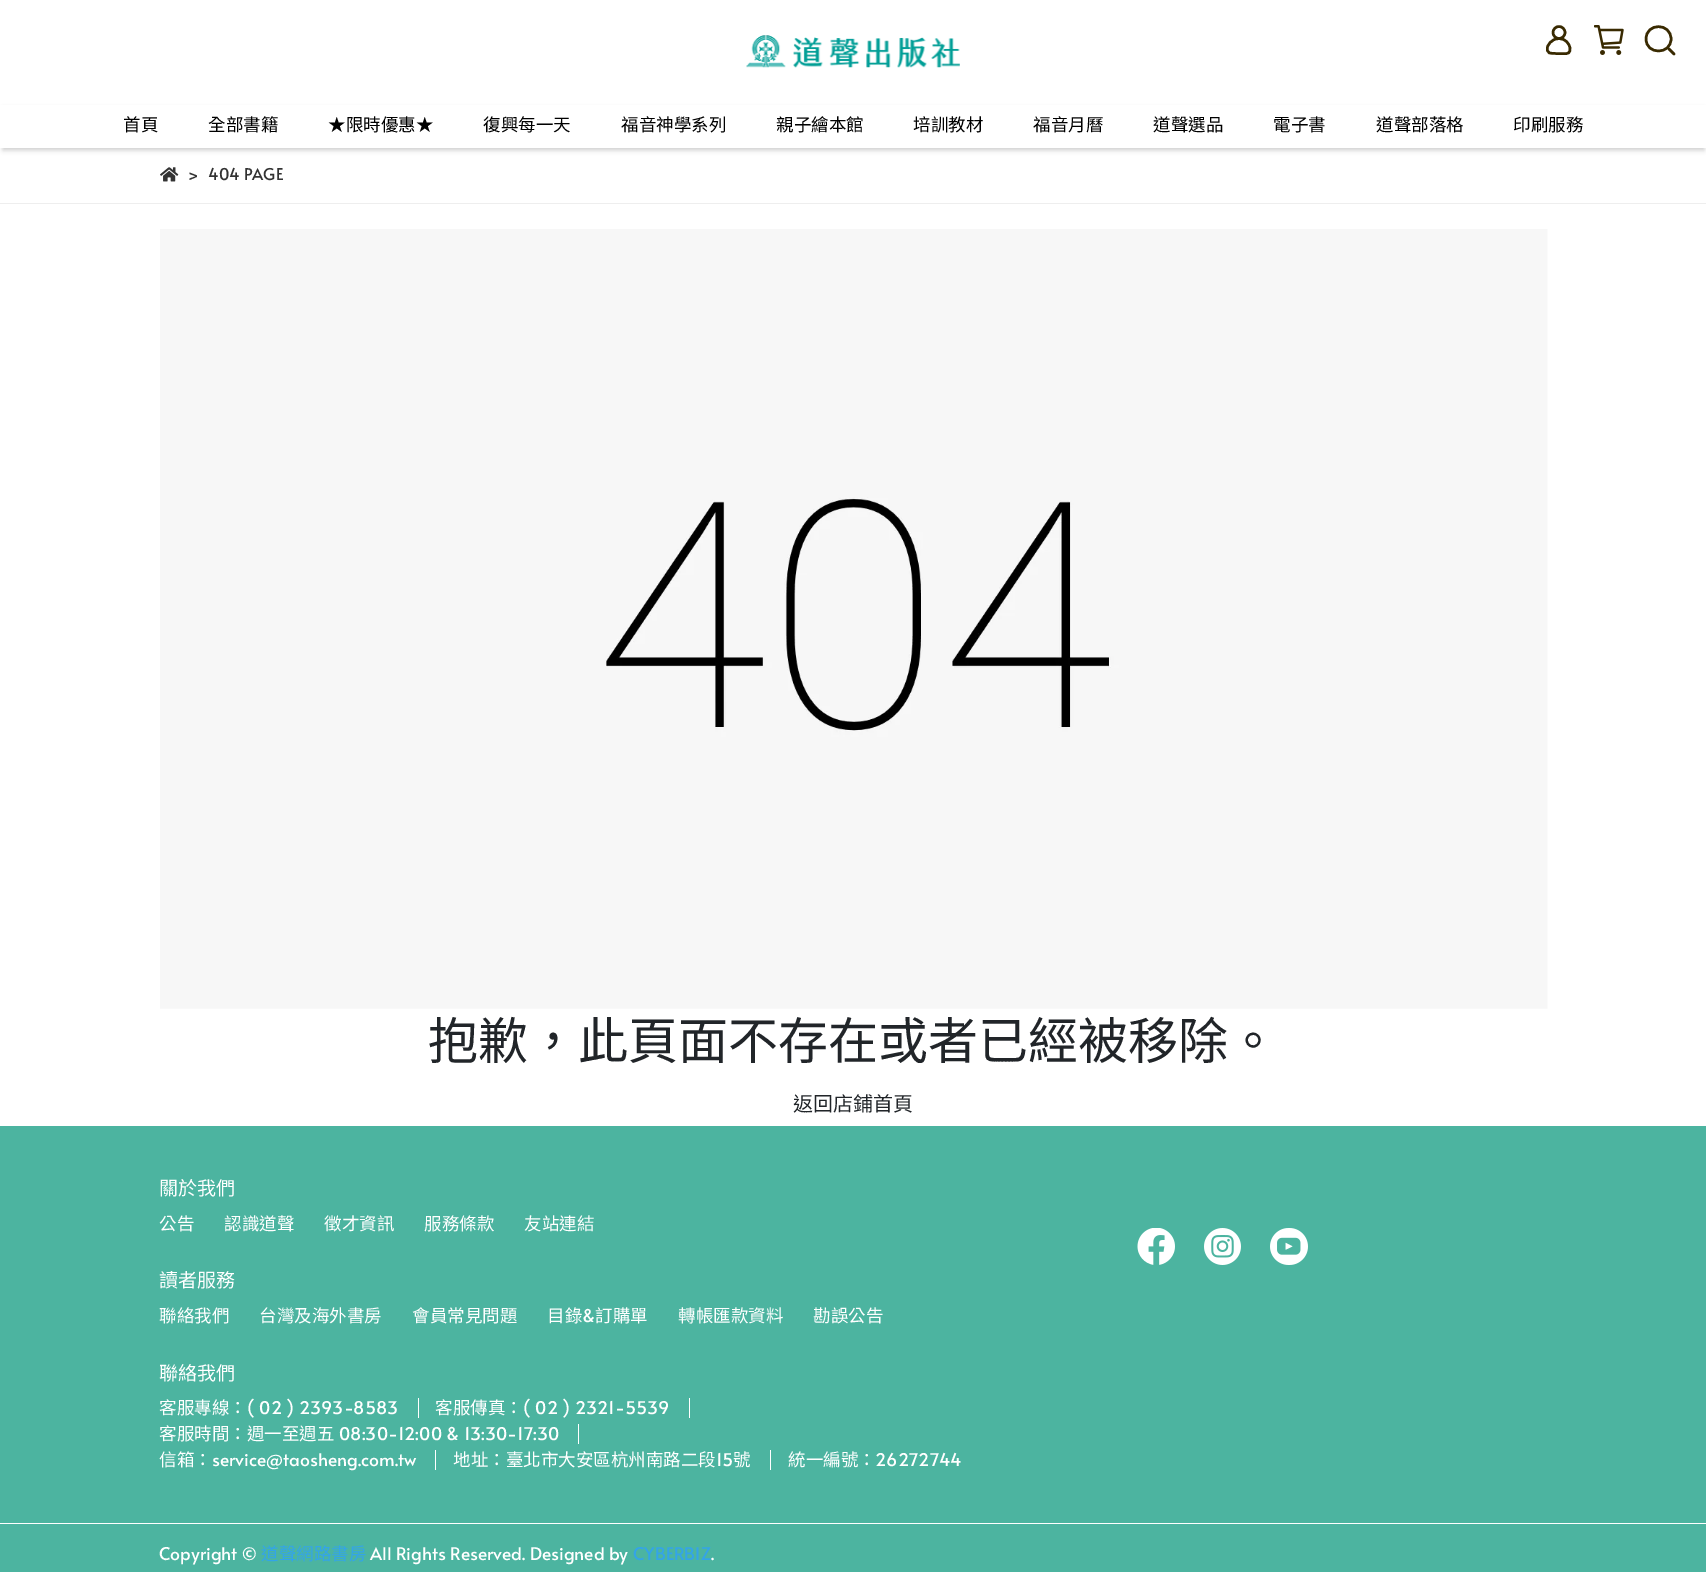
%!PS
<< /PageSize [1706 1572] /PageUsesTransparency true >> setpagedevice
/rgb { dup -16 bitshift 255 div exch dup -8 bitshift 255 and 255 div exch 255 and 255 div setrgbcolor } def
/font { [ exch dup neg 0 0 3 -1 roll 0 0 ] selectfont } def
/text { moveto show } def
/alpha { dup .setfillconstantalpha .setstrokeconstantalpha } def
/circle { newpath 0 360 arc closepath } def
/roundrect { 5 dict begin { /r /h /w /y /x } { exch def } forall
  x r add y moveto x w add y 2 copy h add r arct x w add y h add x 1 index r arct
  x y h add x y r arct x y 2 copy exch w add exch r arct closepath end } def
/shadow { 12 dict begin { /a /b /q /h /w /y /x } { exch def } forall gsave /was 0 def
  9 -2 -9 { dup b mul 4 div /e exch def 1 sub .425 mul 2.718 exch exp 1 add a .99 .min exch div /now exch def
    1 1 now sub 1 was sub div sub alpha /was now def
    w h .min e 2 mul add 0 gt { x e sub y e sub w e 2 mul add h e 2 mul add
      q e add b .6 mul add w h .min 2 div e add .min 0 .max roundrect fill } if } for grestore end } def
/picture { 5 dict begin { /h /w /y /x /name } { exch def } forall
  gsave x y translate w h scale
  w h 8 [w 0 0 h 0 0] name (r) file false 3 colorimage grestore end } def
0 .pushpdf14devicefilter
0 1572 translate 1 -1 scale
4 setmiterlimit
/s1 { /NotoSansCJKTC-Regular 17.5 font 16#000000 rgb } def
/s2 { /Alata-Regular 16.25 font 16#333333 rgb } def
/s3 { /NotoSansCJKTC-Regular 50 font 16#212529 rgb } def
/s4 { /NotoSansCJKTC-Regular 20 font 16#212529 rgb } def
/s5 { /NotoSansCJKTC-Regular 19 font 16#FFFFFF rgb } def
/s6 { /NotoSansCJKTC-Regular 17.5 font 16#FFFFFF rgb } def
/s7 { /Alata-Regular 17.5 font 16#FFFFFF rgb } def
/s8 { /NotoSansCJKTC-Regular 17.5 font 16#33A4E8 rgb } def
/s9 { /Alata-Regular 17.5 font 16#33A4E8 rgb } def
16#FFFFFF rgb
0 0 1706 1572 rectfill
(pic1.raw) 746 35 214 33 picture
16#392A01 rgb
2.5 setlinewidth
1559 32.5 6 circle stroke
1566 53.5 moveto 1556.5 53.5 lineto 1551 53.5 1546 54 1547.5 47 curveto 1548.5 43.5 1551 41 1554.5 39.5 curveto 1568.5 34 1575 54 1566 53.5 curveto closepath stroke
(pic2.raw) 1594 25 30 30 picture
1 setlinecap
1 setlinejoin
1671 39 moveto 1671 55 1646 55 1646 39 curveto 1646 22.5 1671 22.5 1671 39 curveto closepath 1669 49 moveto 1674 54 lineto stroke
16#000000 rgb
3 109 1701 41 0 2.5 0.2 shadow
16#FFFFFF rgb
0 105 1706 43 rectfill
s1
(首頁) 123 131 text
(全部書籍) 208 131 text
(★限時優惠★) 328 131 text
(復興每一天) 483 131 text
(福音神學系列) 621 131 text
(親子繪本館) 776 131 text
(培訓教材) 913 131 text
(福音月曆) 1033 131 text
(道聲選品) 1153 131 text
(電子書) 1273 131 text
(道聲部落格) 1376 131 text
(印刷服務) 1513 131 text
16#EEEEEE rgb
0 203 1706 1 rectfill
(pic3.raw) 160 167 19 15 picture
s2
(>) 188 180 text
(404 PAGE) 208 180 text
(pic4.raw) 160 229 1388 780 picture
s3
(抱歉，此頁面不存在或者已經被移除。) 428 1059 text
s4
(返回店鋪首頁) 793 1111 text
16#4CB4A0 rgb
0 1126 1706 446 rectfill
s5
(關於我們) 159 1195 text
s6
(公告) 159 1230 text
(認識道聲) 224 1230 text
(徵才資訊) 324 1230 text
(服務條款) 424 1230 text
(友站連結) 524 1230 text
s5
(讀者服務) 159 1287 text
s6
(聯絡我們) 159 1322 text
(台灣及海外書房) 259 1322 text
(會員常見問題) 412 1322 text
(目錄) 547 1322 text
s7
(&) 582 1322 text
s6
(訂購單) 595 1322 text
(轉帳匯款資料) 678 1322 text
(勘誤公告) 813 1322 text
s5
(聯絡我們) 159 1380 text
418 1398 1 20 rectfill
s6
(客服專線：) 159 1414 text
s7
(\( 02 \) 2393-8583) 247 1414 text
689 1398 1 20 rectfill
s6
(客服傳真：) 435 1414 text
s7
(\( 02 \) 2321-5539) 523 1414 text
578 1424 1 20 rectfill
s6
(客服時間：週一至週五) 159 1440 text
s7
(08:30-12:00 & 13:30-17:30) 339 1440 text
435 1450 1 20 rectfill
s6
(信箱：) 159 1466 text
s7
(service@taosheng.com.tw) 212 1466 text
770 1450 1 20 rectfill
s6
(地址：臺北市大安區杭州南路二段) 453 1466 text
s7
(15) 716 1466 text
s6
(號) 733 1466 text
(統一編號：) 788 1466 text
s7
(26272744) 875 1466 text
(pic5.raw) 1137 1228 38 37 picture
(pic6.raw) 1204 1228 37 37 picture
(pic7.raw) 1270 1228 38 37 picture
0 1523 1706 1 rectfill
(Copyright ©) 159 1560 text
s8
(道聲網路書房) 261 1560 text
s7
(All Rights Reserved. Designed by) 370 1560 text
s9
(CYBERBIZ) 633 1560 text
s7
(.) 711 1560 text
.poppdf14devicefilter showpage
